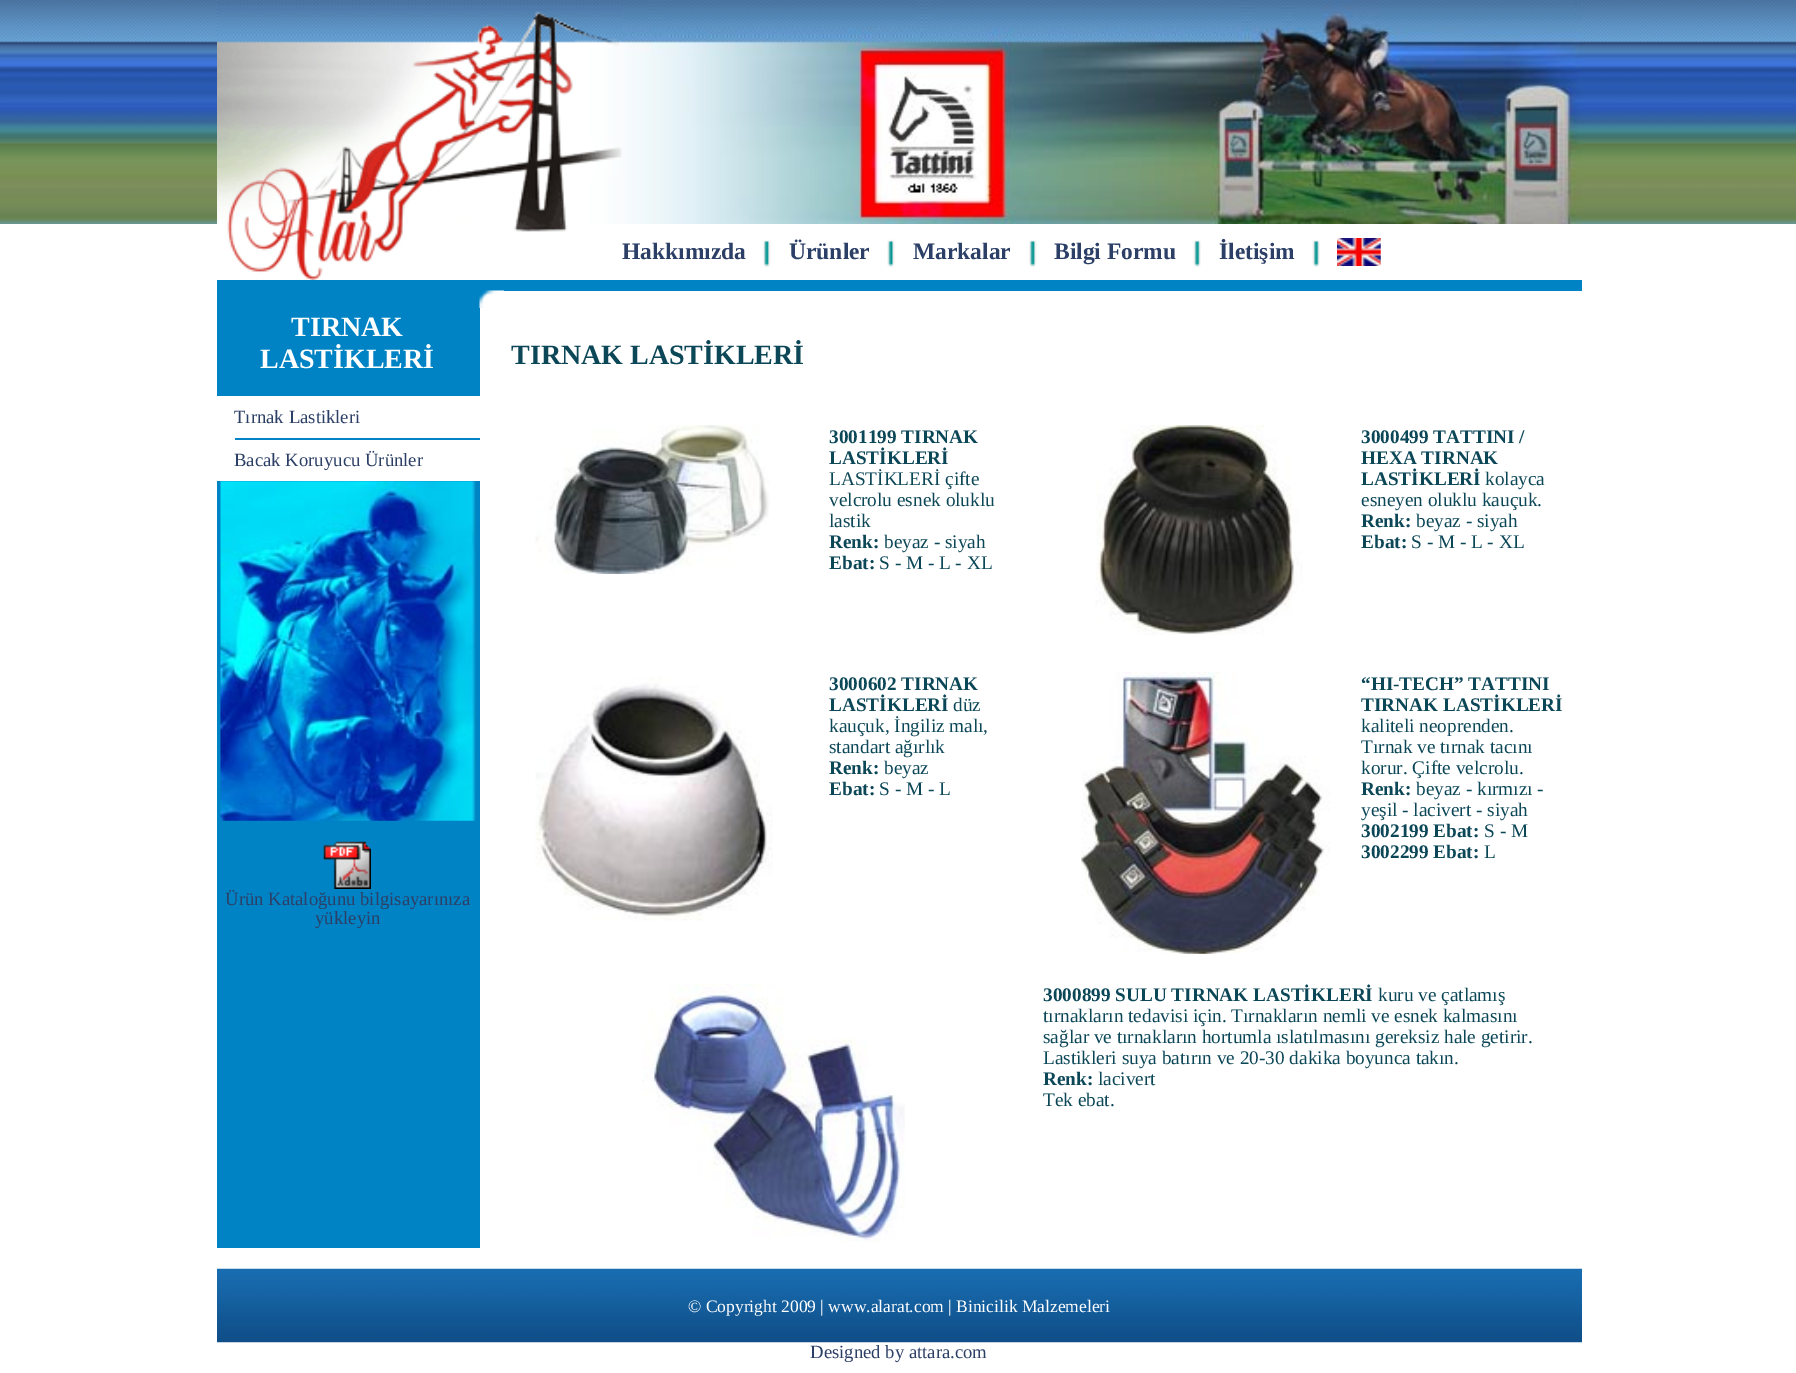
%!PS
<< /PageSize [1796 1373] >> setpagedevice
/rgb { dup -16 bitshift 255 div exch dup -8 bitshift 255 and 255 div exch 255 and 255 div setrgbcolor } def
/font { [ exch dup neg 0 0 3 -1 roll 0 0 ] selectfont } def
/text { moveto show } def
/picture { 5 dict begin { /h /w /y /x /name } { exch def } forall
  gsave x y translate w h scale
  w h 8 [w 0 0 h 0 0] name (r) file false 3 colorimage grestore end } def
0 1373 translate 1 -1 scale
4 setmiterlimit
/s1 { /LiberationSerif-Bold 23.5 font 16#2C3F67 rgb } def
/s2 { /LiberationSerif-Bold 28 font 16#FFFFFF rgb } def
/s3 { /LiberationSerif-Regular 18.7 font 16#2C3F67 rgb } def
/s4 { /LiberationSerif-Bold 28 font 16#0C4758 rgb } def
/s5 { /LiberationSerif-Bold 19.25 font 16#0C4758 rgb } def
/s6 { /LiberationSerif-Regular 19.25 font 16#0C4758 rgb } def
/s7 { /LiberationSerif-Regular 17.5 font 16#FFFFFF rgb } def
16#FFFFFF rgb
0 0 1796 1373 rectfill
(pic1.raw) 0 0 1796 224 picture
(pic2.raw) 217 0 406 280 picture
(pic3.raw) 623 0 959 224 picture
s1
(Hakkımızda) 622 259 text
(pic4.raw) 763 240 8 27 picture
(Ürünler) 789 259 text
(pic5.raw) 887 239 8 28 picture
(Markalar) 913 259 text
(pic4.raw) 1029 240 8 27 picture
(Bilgi Formu) 1054 259 text
(pic6.raw) 1193 240 8 27 picture
(İletişim) 1219 259 text
(pic6.raw) 1312 240 8 27 picture
(pic7.raw) 1337 238 44 28 picture
16#0083C4 rgb
217 280 1365 11 rectfill
217 291 263 957 rectfill
(pic8.raw) 479 290 25 18 picture
s2
(TIRNAK) 291 336 text
(LASTİKLERİ) 260 368 text
217 396 263 85 rectfill
s3
(Tırnak Lastikleri) 234 423 text
16#0083C4 rgb
235 438 245 2 rectfill
s3
(Bacak Koruyucu Ürünler) 234 466 text
(pic9.raw) 220 481 256 340 picture
(pic10.raw) 323 841 48 48 picture
(Ürün Kataloğunu bilgisayarınıza) 225 905 text
(yükleyin) 315 924 text
s4
(TIRNAK LASTİKLERİ) 511 364 text
(pic11.raw) 535 425 235 149 picture
s5
(3001199 TIRNAK) 829 443 text
(LASTİKLERİ) 829 464 text
s6
(LASTİKLERİ çifte) 829 485 text
(velcrolu esnek oluklu) 829 506 text
(lastik) 829 527 text
s5
(Renk:) 829 548 text
s6
(beyaz - siyah) 884 548 text
s5
(Ebat:) 829 569 text
s6
(S - M - L - XL) 879 569 text
(pic12.raw) 1095 425 208 210 picture
s5
(3000499 TATTINI /) 1361 443 text
(HEXA TIRNAK) 1361 464 text
(LASTİKLERİ) 1361 485 text
s6
(kolayca) 1485 485 text
(esneyen oluklu kauçuk.) 1361 506 text
s5
(Renk:) 1361 527 text
s6
(beyaz - siyah) 1416 527 text
s5
(Ebat:) 1361 548 text
s6
(S - M - L - XL) 1411 548 text
(pic13.raw) 535 677 238 244 picture
s5
(3000602 TIRNAK) 829 690 text
(LASTİKLERİ) 829 711 text
s6
(düz) 953 711 text
(kauçuk, İngiliz malı,) 829 732 text
(standart ağırlık) 829 753 text
s5
(Renk:) 829 774 text
s6
(beyaz) 884 774 text
s5
(Ebat:) 829 795 text
s6
(S - M - L) 879 795 text
(pic14.raw) 1081 672 249 282 picture
s5
(“HI-TECH” TATTINI) 1361 690 text
(TIRNAK LASTİKLERİ) 1361 711 text
s6
(kaliteli neoprenden.) 1361 732 text
(Tırnak ve tırnak tacını) 1361 753 text
(korur. Çifte velcrolu.) 1361 774 text
s5
(Renk:) 1361 795 text
s6
(beyaz - kırmızı -) 1416 795 text
(yeşil - lacivert - siyah) 1361 816 text
s5
(3002199 Ebat:) 1361 837 text
s6
(S - M) 1484 837 text
s5
(3002299 Ebat:) 1361 858 text
s6
(L) 1484 858 text
(pic15.raw) 642 983 263 259 picture
s5
(3000899 SULU TIRNAK LASTİKLERİ) 1043 1001 text
s6
(kuru ve çatlamış) 1378 1001 text
(tırnakların tedavisi için. Tırnakların nemli ve esnek kalmasını) 1043 1022 text
(sağlar ve tırnakların hortumla ıslatılmasını gereksiz hale getirir.) 1043 1043 text
(Lastikleri suya batırın ve 20-30 dakika boyunca takın.) 1043 1064 text
s5
(Renk:) 1043 1085 text
s6
(lacivert) 1098 1085 text
(Tek ebat.) 1043 1106 text
(pic16.raw) 217 1268 1365 75 picture
s7
(© Copyright 2009 | www.alarat.com | Binicilik Malzemeleri) 688 1312 text
s3
(Designed by attara.com) 810 1358 text
showpage
